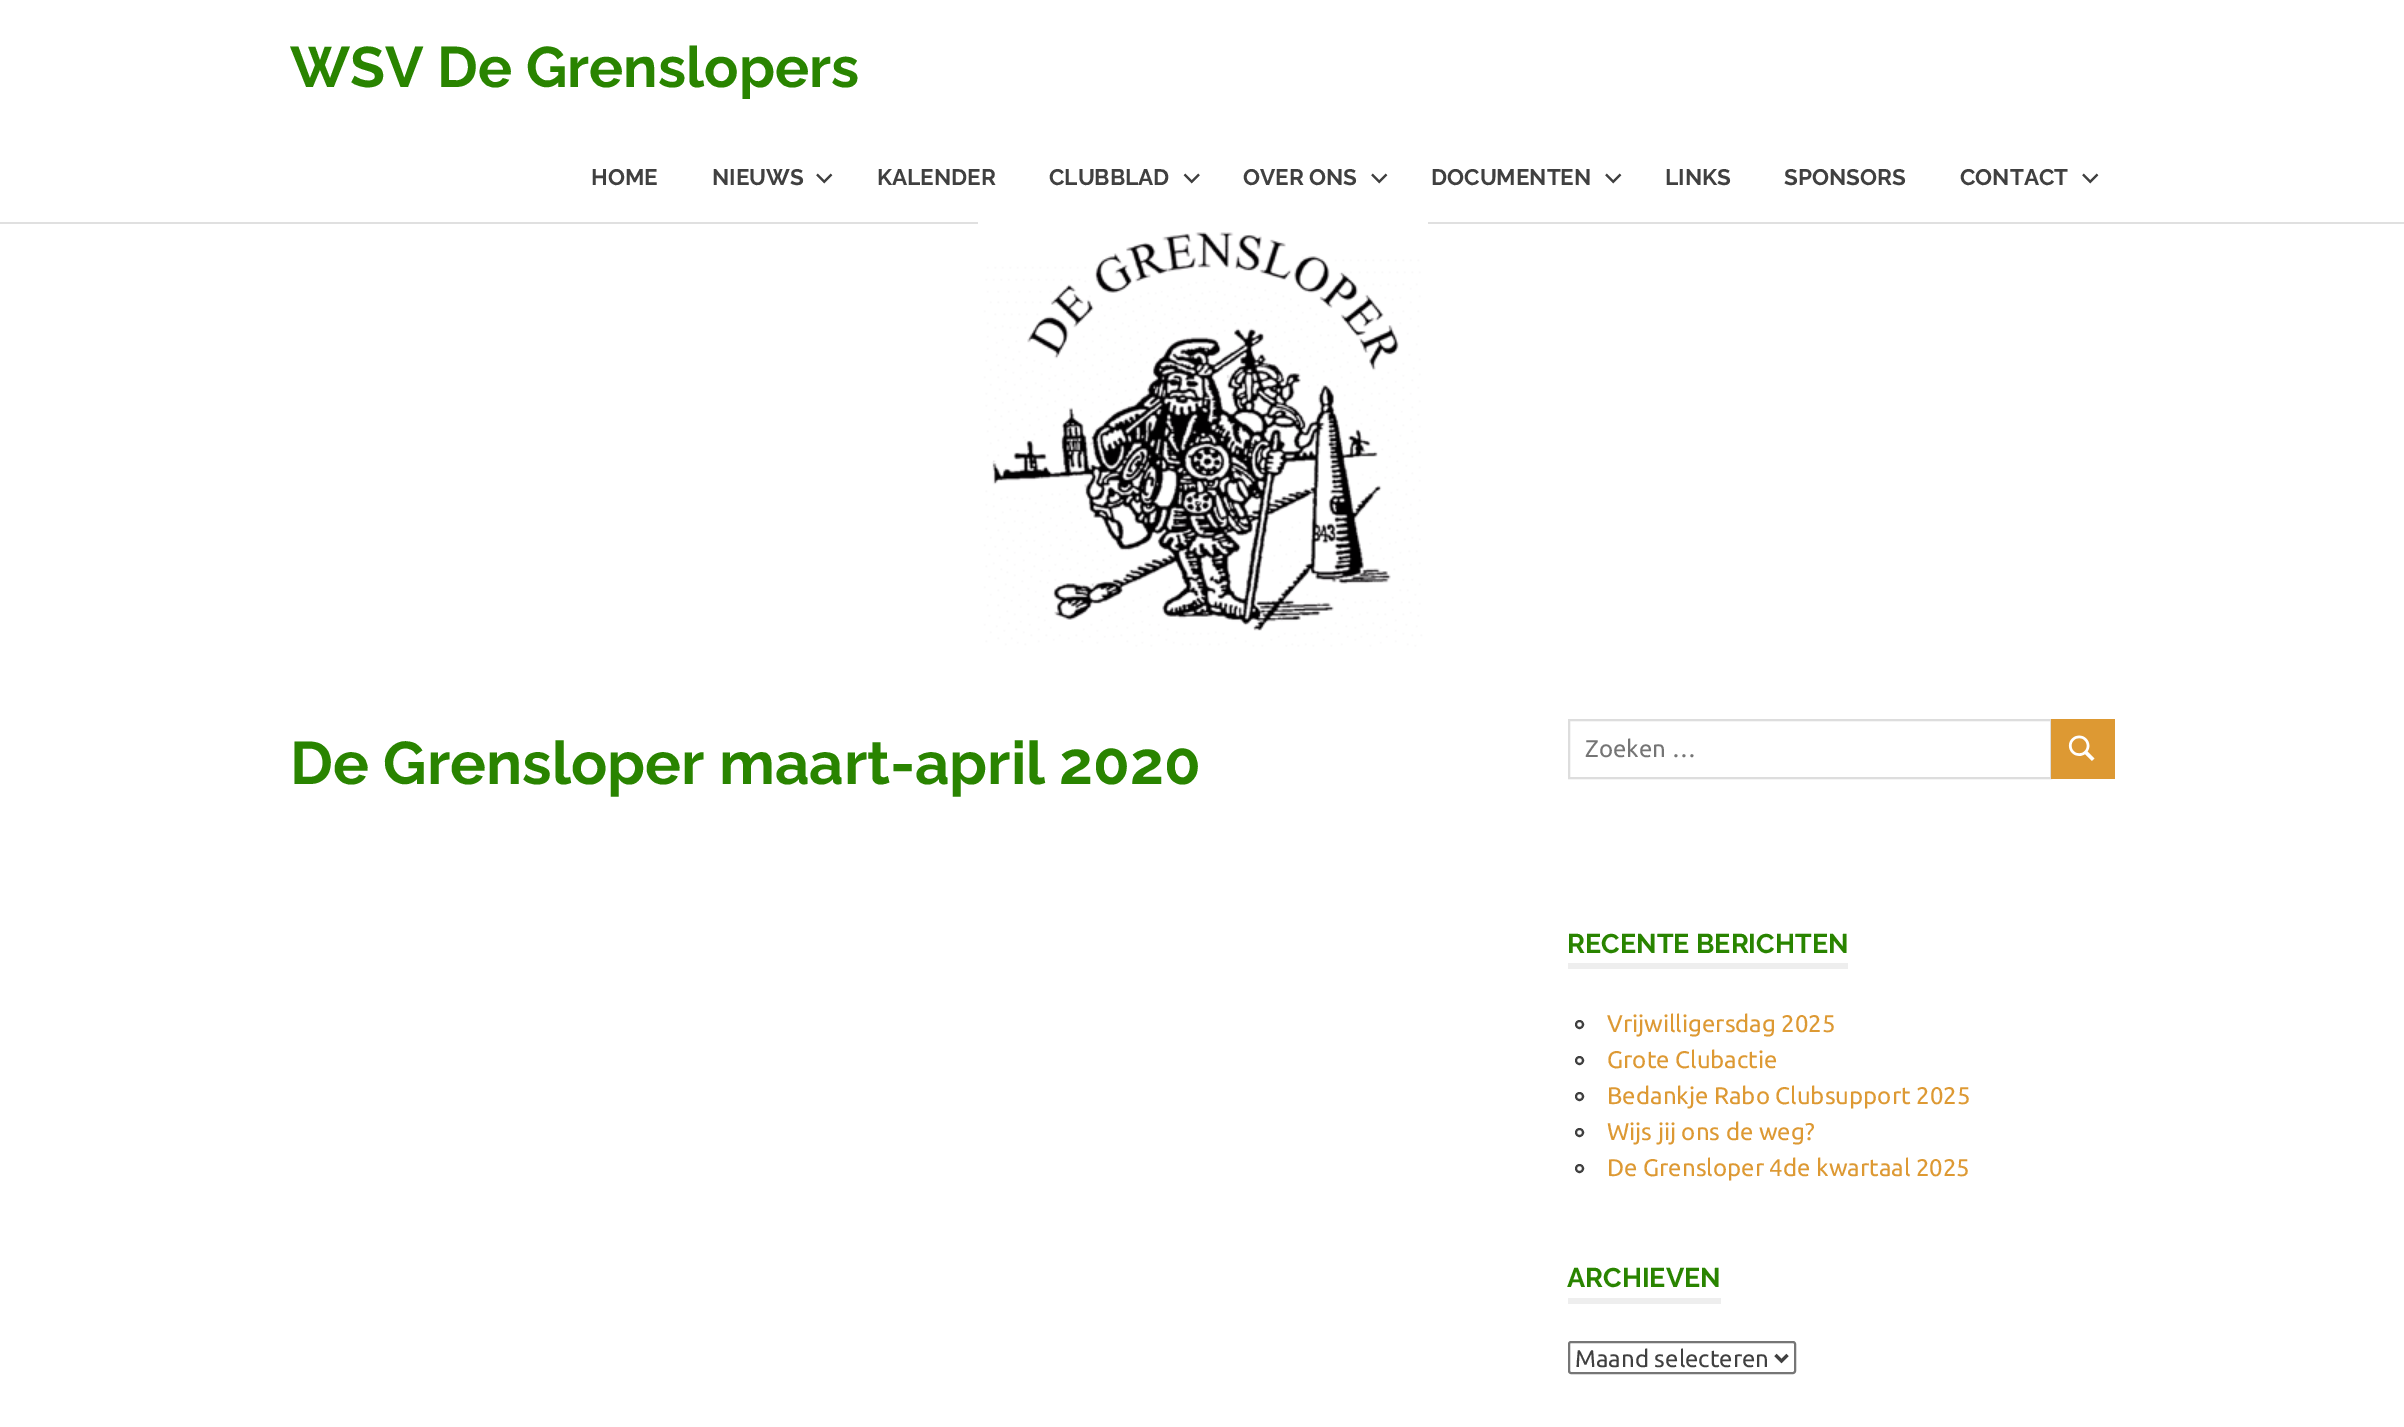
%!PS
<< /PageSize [2404 1427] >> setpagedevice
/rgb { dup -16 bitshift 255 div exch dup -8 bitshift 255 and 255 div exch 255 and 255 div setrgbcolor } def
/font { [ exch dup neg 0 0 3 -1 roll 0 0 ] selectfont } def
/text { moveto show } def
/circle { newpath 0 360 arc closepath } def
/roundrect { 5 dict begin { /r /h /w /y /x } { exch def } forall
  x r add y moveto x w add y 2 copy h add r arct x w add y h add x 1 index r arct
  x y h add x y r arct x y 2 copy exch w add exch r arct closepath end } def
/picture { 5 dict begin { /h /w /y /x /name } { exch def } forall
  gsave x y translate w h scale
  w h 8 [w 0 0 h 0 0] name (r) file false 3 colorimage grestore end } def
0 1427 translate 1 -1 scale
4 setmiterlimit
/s1 { /Raleway-Bold 57 font 16#298400 rgb } def
/s2 { /Raleway-Bold 22.5 font 16#404040 rgb } def
/s3 { /Raleway-Bold 60 font 16#298400 rgb } def
/s4 { /Ubuntu-Regular 24 font 16#757575 rgb } def
/s5 { /Raleway-Bold 27 font 16#298400 rgb } def
/s6 { /Ubuntu-Regular 24 font 16#DD9933 rgb } def
/s7 { /Ubuntu-Regular 24 font 16#404040 rgb } def
16#FFFFFF rgb
0 0 2404 1427 rectfill
16#E0E0E0 rgb
0 222 2404 2 rectfill
s1
(WSV De Grenslopers) 290 87 text
s2
(HOME) 591 185 text
(NIEUWS) 712 185 text
(pic1.raw) 816 173 17 11 picture
(KALENDER) 877 185 text
(CLUBBLAD) 1049 185 text
(pic2.raw) 1183 173 17 11 picture
(OVER ONS) 1243 185 text
(pic1.raw) 1371 173 17 11 picture
(DOCUMENTEN) 1431 185 text
(pic1.raw) 1605 173 17 11 picture
(LINKS) 1665 185 text
(SPONSORS) 1784 185 text
(CONTACT) 1960 185 text
(pic1.raw) 2082 173 17 11 picture
(pic3.raw) 978 222 450 425 picture
s3
(De Grensloper maart-april 2020) 290 784 text
16#DDDDDD rgb
2 setlinewidth
1569 720 482 58 rectstroke
s4
(Zoeken …) 1585 757 text
16#DD9933 rgb
2051 719 64 60 rectfill
(pic4.raw) 2068 735 27 26 picture
16#EEEEEE rgb
1568 963 280 6 rectfill
s5
(RECENTE BERICHTEN) 1567 953 text
16#404040 rgb
1579.5 1024.5 3.5 circle stroke
s6
(Vrijwilligersdag 2025) 1607 1032 text
16#404040 rgb
1579.5 1060.5 3.5 circle stroke
s6
(Grote Clubactie) 1607 1068 text
16#404040 rgb
1579.5 1096.5 3.5 circle stroke
s6
(Bedankje Rabo Clubsupport 2025) 1607 1104 text
16#404040 rgb
1579.5 1132.5 3.5 circle stroke
s6
(Wijs jij ons de weg?) 1607 1140 text
16#404040 rgb
1579.5 1168.5 3.5 circle stroke
s6
(De Grensloper 4de kwartaal 2025) 1607 1176 text
16#EEEEEE rgb
1568 1298 153 6 rectfill
s5
(ARCHIEVEN) 1567 1287 text
16#767676 rgb
1569 1342 226 31 2 roundrect stroke
16#404040 rgb
3 setlinewidth
1775.5 1355 moveto 1781.5 1361 lineto 1787.5 1355 lineto stroke
s7
(Maand selecteren) 1575 1367 text
showpage
